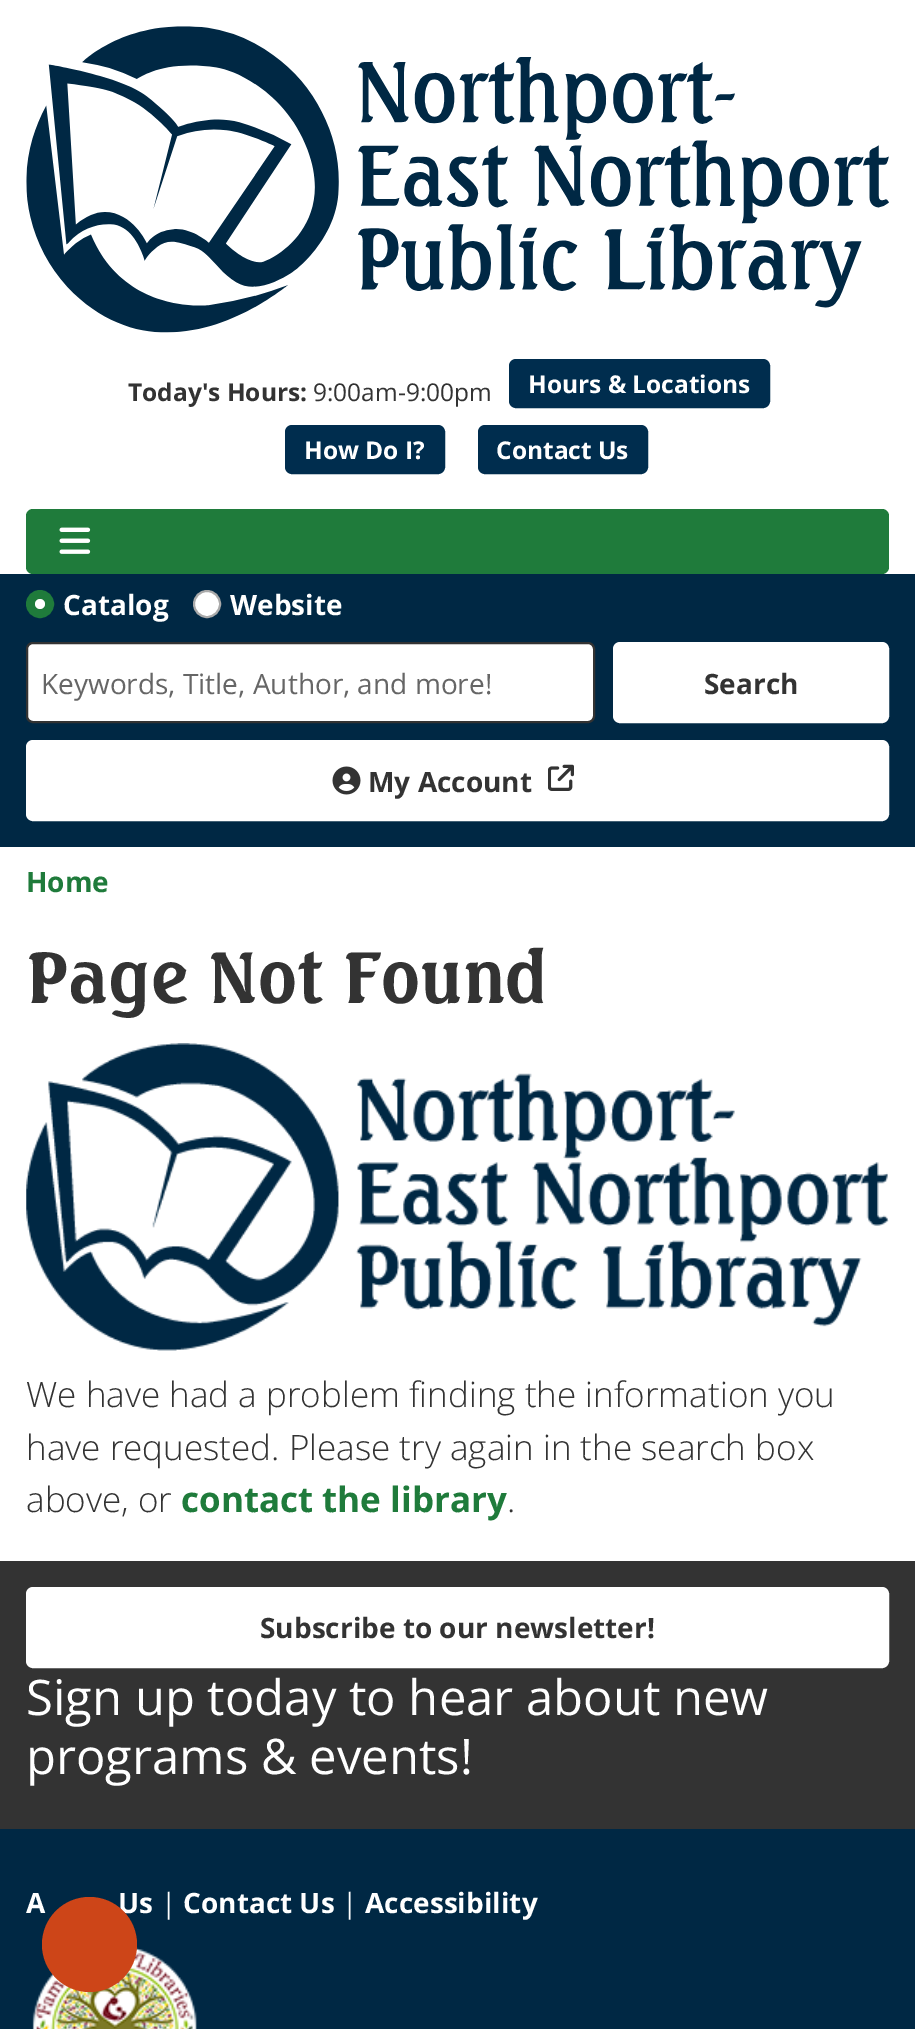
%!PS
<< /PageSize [915 2029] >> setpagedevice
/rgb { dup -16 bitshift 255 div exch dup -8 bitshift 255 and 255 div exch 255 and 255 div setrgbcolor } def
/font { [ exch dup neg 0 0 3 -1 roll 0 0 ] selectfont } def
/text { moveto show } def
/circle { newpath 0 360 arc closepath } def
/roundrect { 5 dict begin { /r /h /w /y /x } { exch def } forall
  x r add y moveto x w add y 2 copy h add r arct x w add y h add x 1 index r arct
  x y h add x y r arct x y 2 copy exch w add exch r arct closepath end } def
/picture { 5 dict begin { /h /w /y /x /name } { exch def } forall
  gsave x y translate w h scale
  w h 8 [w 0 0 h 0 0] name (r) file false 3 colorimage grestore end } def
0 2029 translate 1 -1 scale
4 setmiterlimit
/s1 { /OpenSans-Bold 24.5 font 16#333333 rgb } def
/s2 { /OpenSans-Regular 24.5 font 16#333333 rgb } def
/s3 { /OpenSans-Bold 24.5 font 16#FFFFFF rgb } def
/s4 { /OpenSans-Bold 28 font 16#FFFFFF rgb } def
/s5 { /OpenSans-Regular 28 font 16#666666 rgb } def
/s6 { /OpenSans-Bold 28 font 16#333333 rgb } def
/s7 { /OpenSans-Bold 28 font 16#1F7B3B rgb } def
/s8 { /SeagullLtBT-Bold 70 font 16#333333 rgb } def
/s9 { /OpenSans-Light 35 font 16#333333 rgb } def
/s10 { /OpenSans-Bold 35 font 16#1F7B3B rgb } def
/s11 { /OpenSans-Regular 49 font 16#FFFFFF rgb } def
/s12 { /OpenSans-Regular 28 font 16#FFFFFF rgb } def
16#FFFFFF rgb
0 0 915 2029 rectfill
(pic1.raw) 26 26 863 307 picture
s1
(Today's Hours:) 128 401 text
s2
(9:00am-9:00pm) 313 401 text
16#002D4E rgb
510 360 259 47 6 roundrect gsave fill grestore
2 setlinewidth
stroke
s3
(Hours & Locations) 528 393 text
16#002D4E rgb
286 426 158 47 6 roundrect gsave fill grestore
stroke
s3
(How Do I?) 304 459 text
16#002D4E rgb
479 426 168 47 6 roundrect gsave fill grestore
stroke
s3
(Contact Us) 496 459 text
16#1F7B3B rgb
26 509 863 65 7 roundrect fill
(pic2.raw) 59 527 32 27 picture
16#002844 rgb
0 574 915 273 rectfill
16#1F7B3B rgb
40 604 13 circle gsave fill grestore
stroke
s4
(Catalog) 63 615 text
40 604 5 circle fill
207 604 13 circle gsave fill grestore
16#AAAAAA rgb
stroke
s4
(Website) 230 615 text
27 643 567 79 6 roundrect gsave fill grestore
16#333333 rgb
stroke
s5
(Keywords, Title, Author, and more!) 41 694 text
16#FFFFFF rgb
614 643 274 79 6 roundrect gsave fill grestore
stroke
s6
(Search) 704 694 text
16#FFFFFF rgb
27 741 861 79 6 roundrect gsave fill grestore
stroke
(pic3.raw) 332 766 29 29 picture
s6
(My Account) 368 792 text
(pic4.raw) 548 764 26 27 picture
s7
(Home) 26 892 text
s8
(Page Not Found) 26 1003 text
(pic5.raw) 26 1043 863 308 picture
s9
(We have had a problem finding the information you) 26 1407 text
(have requested. Please try again in the search box) 26 1460 text
(above, or) 26 1512 text
s10
(contact the library) 181 1512 text
s9
(.) 507 1512 text
0 1561 915 268 rectfill
16#FFFFFF rgb
27 1588 861 79 6 roundrect gsave fill grestore
stroke
s6
(Subscribe to our newsletter!) 260 1638 text
s11
(Sign up today to hear about new) 26 1715 text
(programs & events!) 26 1774 text
16#002844 rgb
0 1829 915 200 rectfill
s4
(A) 26 1913 text
(Us) 118 1913 text
s12
(|) 161 1913 text
s4
(Contact Us) 183 1913 text
s12
(|) 342 1913 text
s4
(Accessibility) 365 1913 text
(pic6.raw) 32 1947 165 82 picture
16#CD4518 rgb
89.5 1944.5 47.5 circle fill
showpage
